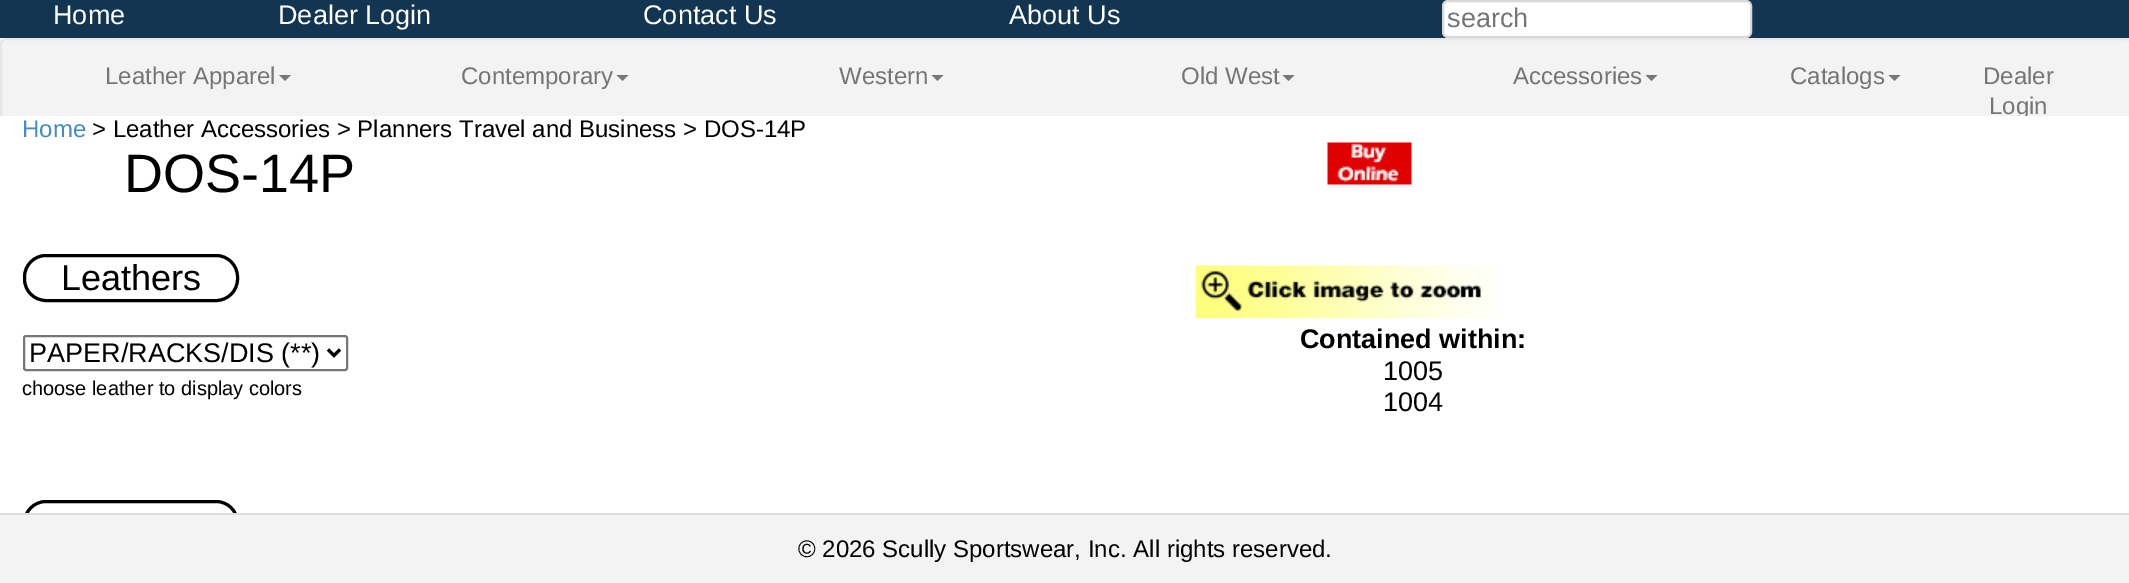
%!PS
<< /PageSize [2129 583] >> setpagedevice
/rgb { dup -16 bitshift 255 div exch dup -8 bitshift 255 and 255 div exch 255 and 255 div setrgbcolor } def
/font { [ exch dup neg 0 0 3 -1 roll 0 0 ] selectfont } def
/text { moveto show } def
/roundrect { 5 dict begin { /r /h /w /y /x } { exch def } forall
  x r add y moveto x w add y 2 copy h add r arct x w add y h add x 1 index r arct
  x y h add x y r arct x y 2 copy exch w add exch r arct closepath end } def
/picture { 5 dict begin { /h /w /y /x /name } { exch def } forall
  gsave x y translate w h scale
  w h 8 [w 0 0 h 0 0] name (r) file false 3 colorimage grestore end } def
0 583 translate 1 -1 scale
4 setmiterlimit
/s1 { /LiberationSans-Regular 27 font 16#FFFFFF rgb } def
/s2 { /LiberationSans-Regular 27 font 16#757575 rgb } def
/s3 { /LiberationSans-Regular 24 font 16#757575 rgb } def
/s4 { /LiberationSans-Regular 24 font 16#428BCA rgb } def
/s5 { /LiberationSans-Regular 24 font 16#000000 rgb } def
/s6 { /LiberationSans-Regular 54 font 16#000000 rgb } def
/s7 { /LiberationSans-Regular 36 font 16#000000 rgb } def
/s8 { /LiberationSans-Regular 27 font 16#000000 rgb } def
/s9 { /LiberationSans-Regular 20 font 16#000000 rgb } def
/s10 { /LiberationSans-Bold 27 font 16#000000 rgb } def
16#123652 rgb
0 0 2129 583 rectfill
s1
(Home) 53 24 text
(Dealer Login) 278 24 text
(Contact Us) 643 24 text
(About Us) 1009 24 text
1443 1 308 36 5 roundrect gsave fill grestore
16#D8D8D8 rgb
2 setlinewidth
stroke
s2
(search) 1447 27 text
16#F3F3F3 rgb
0 38 2129 78 rectfill
16#E7E7E7 rgb
1 39 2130 106 5 roundrect stroke
s3
(Leather Apparel) 105 84 text
16#777777 rgb
279 75 moveto 291 75 lineto 285 81 lineto closepath fill
s3
(Contemporary) 461 84 text
16#777777 rgb
616.5 75 moveto 628.5 75 lineto 622.5 81 lineto closepath fill
s3
(Western) 839 84 text
16#777777 rgb
931.5 75 moveto 943.5 75 lineto 937.5 81 lineto closepath fill
s3
(Old West) 1181 84 text
16#777777 rgb
1282.5 75 moveto 1294.5 75 lineto 1288.5 81 lineto closepath fill
s3
(Accessories) 1513 84 text
16#777777 rgb
1645.5 75 moveto 1657.5 75 lineto 1651.5 81 lineto closepath fill
s3
(Catalogs) 1790 84 text
16#777777 rgb
1888.5 75 moveto 1900.5 75 lineto 1894.5 81 lineto closepath fill
s3
(Dealer) 1983 84 text
(Login) 1989 114 text
16#FFFFFF rgb
0 116 2129 397 rectfill
s4
(Home) 22 137 text
s5
(> Leather Accessories > Planners Travel and Business > DOS-14P) 92 137 text
s6
(DOS-14P) 124 192 text
(pic1.raw) 1327 142 85 43 picture
3 setlinewidth
24.5 255.5 213 45 21.5 roundrect stroke
s7
(Leathers) 61 290 text
16#767676 rgb
2 setlinewidth
24 336 323 34 2 roundrect stroke
16#000000 rgb
3 setlinewidth
328 349.5 moveto 334 355.5 lineto 340 349.5 lineto stroke
s8
(PAPER/RACKS/DIS \(**\)) 29 362 text
s9
(choose leather to display colors) 22 395 text
24.5 501.5 213 45 21.5 roundrect stroke
(pic2.raw) 1195 265 304 53 picture
s10
(Contained within:) 1300 348 text
s8
(1005) 1383 380 text
(1004) 1383 411 text
16#F3F3F3 rgb
0 515 2129 68 rectfill
16#DDDDDD rgb
0 513 2129 2 rectfill
s5
(© 2026 Scully Sportswear, Inc. All rights reserved.) 798 557 text
showpage
